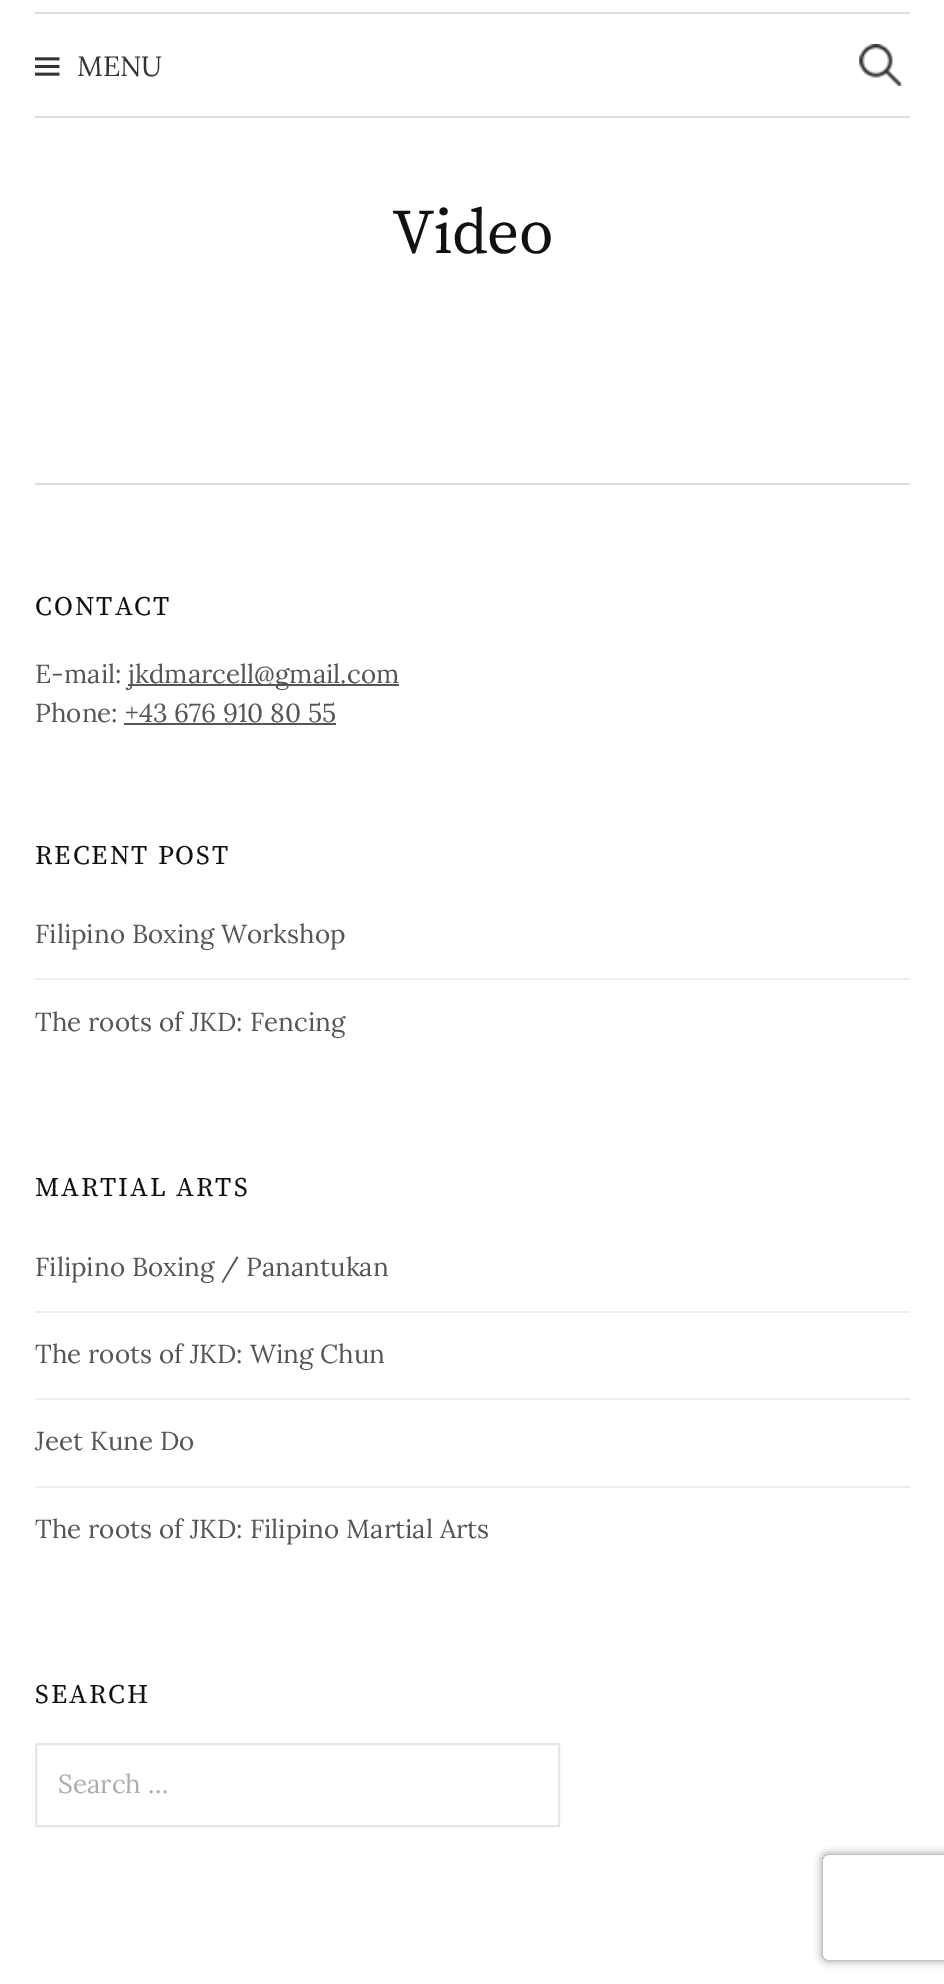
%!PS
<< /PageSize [944 1984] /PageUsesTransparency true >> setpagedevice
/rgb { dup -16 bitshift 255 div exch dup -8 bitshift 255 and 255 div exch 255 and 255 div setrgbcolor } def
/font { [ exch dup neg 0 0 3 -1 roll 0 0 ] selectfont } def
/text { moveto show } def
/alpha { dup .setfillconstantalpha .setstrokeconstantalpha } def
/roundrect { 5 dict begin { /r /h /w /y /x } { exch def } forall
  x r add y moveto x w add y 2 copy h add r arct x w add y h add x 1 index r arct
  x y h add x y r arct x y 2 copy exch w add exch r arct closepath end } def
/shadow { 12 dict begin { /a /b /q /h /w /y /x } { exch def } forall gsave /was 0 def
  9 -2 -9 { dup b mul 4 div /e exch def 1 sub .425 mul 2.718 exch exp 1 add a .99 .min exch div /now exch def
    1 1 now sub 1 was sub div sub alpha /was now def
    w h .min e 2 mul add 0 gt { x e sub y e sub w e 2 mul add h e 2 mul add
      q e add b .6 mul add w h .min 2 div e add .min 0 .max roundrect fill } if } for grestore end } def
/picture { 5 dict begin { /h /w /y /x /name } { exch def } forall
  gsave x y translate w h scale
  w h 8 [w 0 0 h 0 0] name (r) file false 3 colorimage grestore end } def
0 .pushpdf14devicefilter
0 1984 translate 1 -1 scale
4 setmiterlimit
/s1 { /Lora-Regular 28 font 16#333333 rgb } def
/s2 { /Lora-Regular 26 font 16#555555 rgb } def
/s3 { /Lora-Regular 26 font 16#ACACAC rgb } def
16#FFFFFF rgb
0 0 944 1984 rectfill
16#DDDDDD rgb
35 12 875 2 rectfill
35 116 875 2 rectfill
(pic1.raw) 35 57 25 19 picture
s1
(MENU) 77 76 text
(pic2.raw) 859 44 43 42 picture
/SourceSerifPro-Regular 63 font
16#111111 rgb
392 253 moveto -0.5 0 (Video) ashow
16#DDDDDD rgb
35 483 875 2 rectfill
/SourceSerifPro-Regular 26.75 font
16#111111 rgb
35 615 moveto 2 0 (CONTACT) ashow
s2
(E-mail:) 35 683 text
128 684 271 2 rectfill
(jkdmarcell@gmail.com) 128 683 text
(Phone: +43 676 910 80 55) 35 722 text
124 723 212 2 rectfill
/SourceSerifPro-Regular 26.75 font
16#111111 rgb
35 864 moveto 2 0 (RECENT POST) ashow
s2
(Filipino Boxing Workshop) 35 943 text
16#EEEEEE rgb
35 978 875 2 rectfill
s2
(The roots of JKD: Fencing) 35 1031 text
/SourceSerifPro-Regular 26.75 font
16#111111 rgb
35 1196 moveto 2 0 (MARTIAL ARTS) ashow
s2
(Filipino Boxing / Panantukan) 35 1276 text
16#EEEEEE rgb
35 1311 875 2 rectfill
s2
(The roots of JKD: Wing Chun) 35 1363 text
16#EEEEEE rgb
35 1398 875 2 rectfill
s2
(Jeet Kune Do) 35 1450 text
16#EEEEEE rgb
35 1486 875 2 rectfill
s2
(The roots of JKD: Filipino Martial Arts) 35 1538 text
/SourceSerifPro-Regular 26.75 font
16#111111 rgb
35 1703 moveto 2 0 (SEARCH) ashow
16#E6E6E6 rgb
2 setlinewidth
36 1744 523 82 rectstroke
s3
(Search …) 58 1793 text
gsave
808 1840 moveto 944 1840 lineto 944 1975 lineto 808 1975 lineto closepath 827 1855 moveto 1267 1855 lineto 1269 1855 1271 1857 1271 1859 curveto 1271 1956 lineto 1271 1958 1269 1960 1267 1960 curveto 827 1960 lineto 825 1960 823 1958 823 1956 curveto 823 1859 lineto 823 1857 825 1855 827 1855 curveto closepath eoclip newpath
16#808080 rgb
823 1855 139 105 4 4.5 1 shadow
grestore
.poppdf14devicefilter showpage
